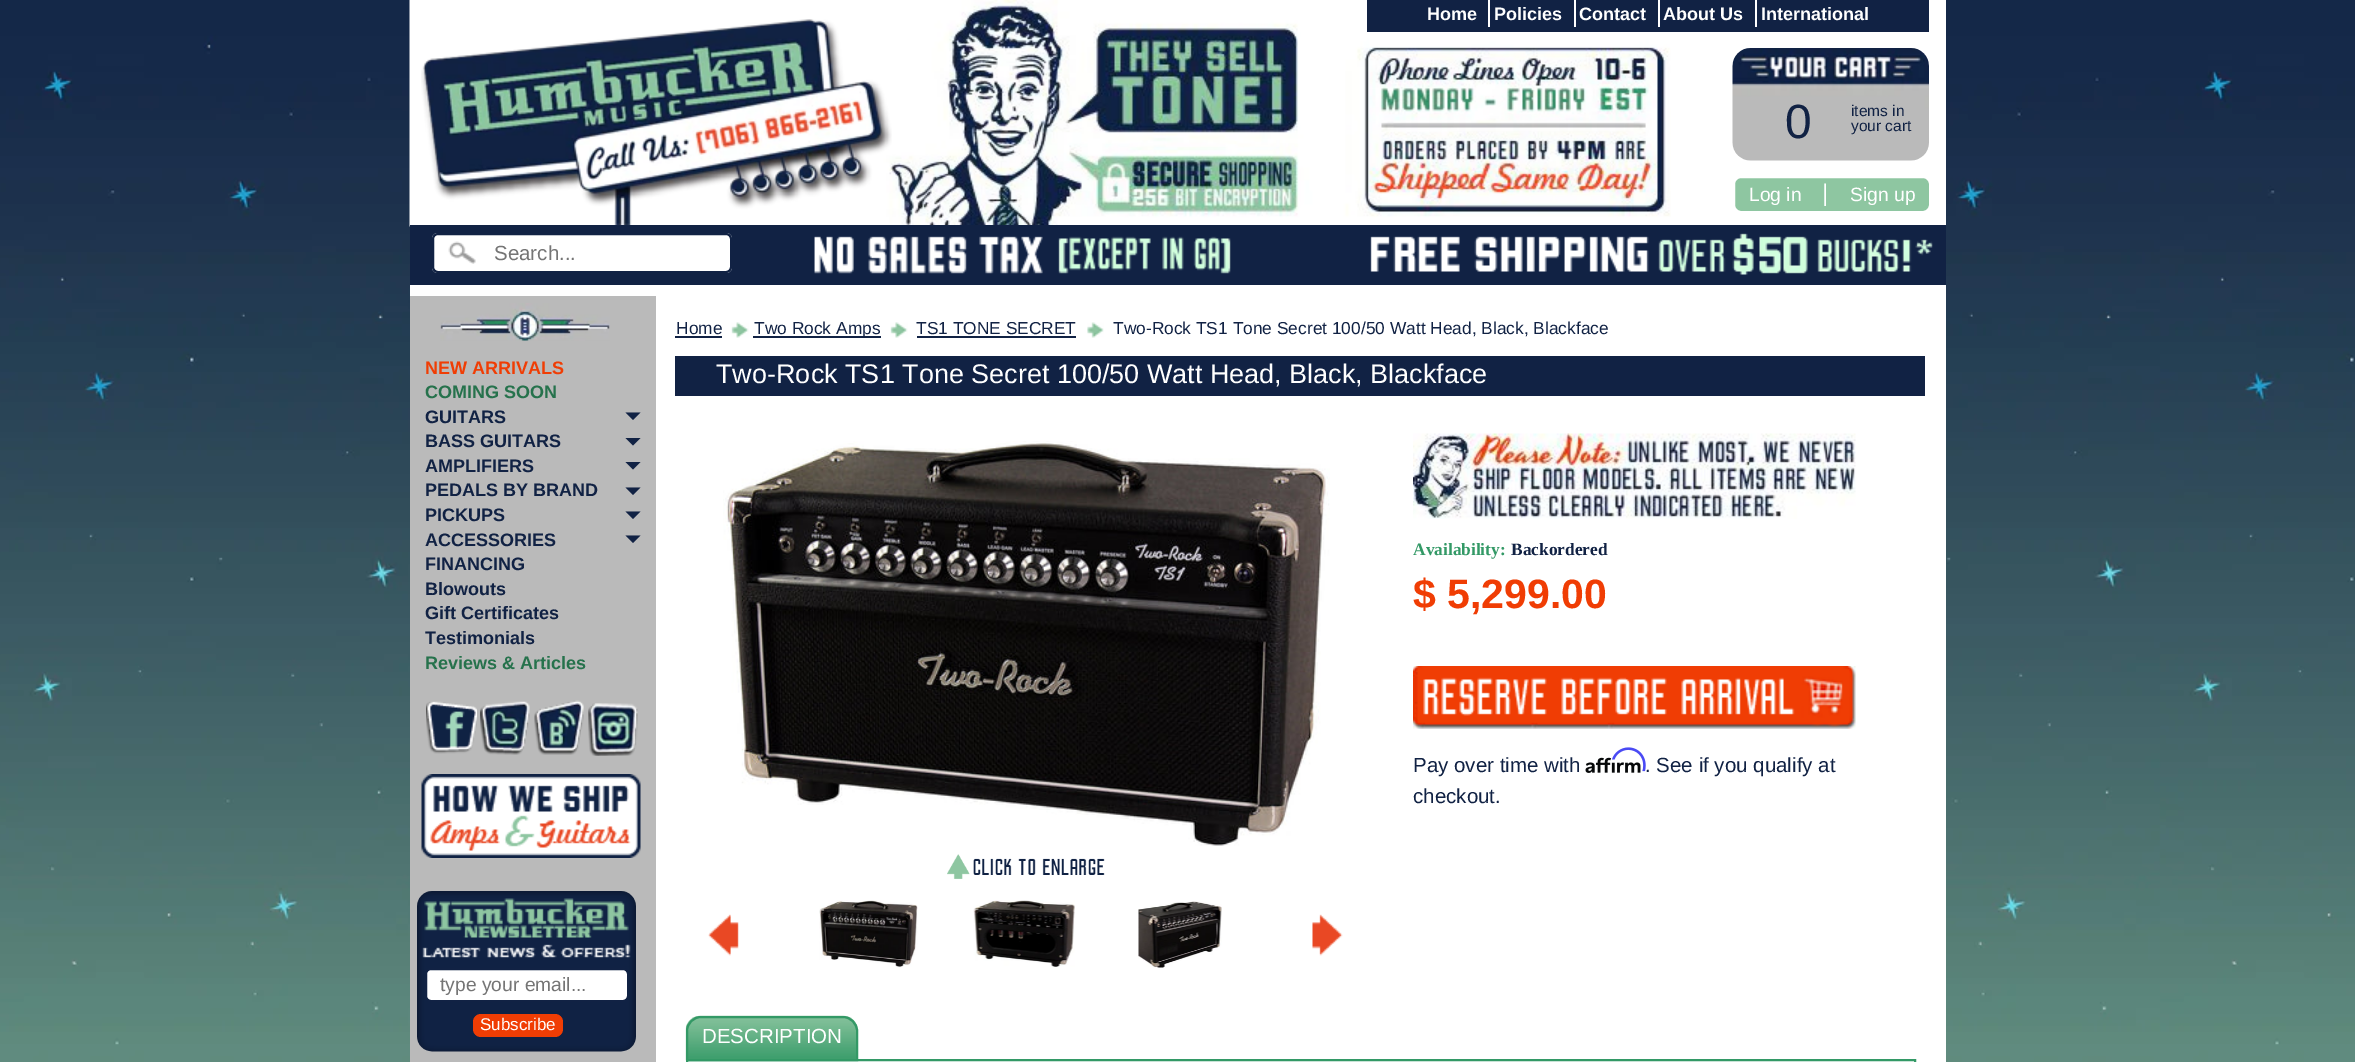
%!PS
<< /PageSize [2355 1062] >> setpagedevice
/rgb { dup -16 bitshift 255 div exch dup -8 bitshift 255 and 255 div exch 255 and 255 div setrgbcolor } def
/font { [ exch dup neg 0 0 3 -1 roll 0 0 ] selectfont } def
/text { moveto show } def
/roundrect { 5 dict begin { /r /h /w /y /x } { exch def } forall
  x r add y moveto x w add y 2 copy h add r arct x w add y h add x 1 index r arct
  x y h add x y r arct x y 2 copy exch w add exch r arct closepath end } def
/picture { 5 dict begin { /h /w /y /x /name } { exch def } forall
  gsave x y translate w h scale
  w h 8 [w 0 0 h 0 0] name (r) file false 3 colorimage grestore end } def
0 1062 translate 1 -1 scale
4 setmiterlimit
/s1 { /LiberationSans-Bold 18 font 16#FFFFFF rgb } def
/s2 { /LiberationSans-Regular 48 font 16#112244 rgb } def
/s3 { /LiberationSans-Regular 15.5 font 16#112244 rgb } def
/s4 { /LiberationSans-Regular 19.25 font 16#FFFFFF rgb } def
/s5 { /LiberationSans-Regular 24 font 16#FFFFFF rgb } def
/s6 { /LiberationSans-Regular 20.5 font 16#757575 rgb } def
/s7 { /LiberationSans-Bold 18 font 16#F03D04 rgb } def
/s8 { /LiberationSans-Bold 18 font 16#26724C rgb } def
/s9 { /LiberationSans-Bold 18 font 16#112244 rgb } def
/s10 { /LiberationSans-Regular 19.25 font 16#757575 rgb } def
/s11 { /LiberationSans-Regular 17 font 16#FFFFFF rgb } def
/s12 { /LiberationSans-Regular 17.35 font 16#112244 rgb } def
/s13 { /LiberationSans-Regular 27 font 16#FFFFFF rgb } def
/s14 { /LiberationSerif-Bold 17.35 font 16#339966 rgb } def
/s15 { /LiberationSerif-Bold 17.35 font 16#112244 rgb } def
/s16 { /LiberationSans-Bold 41 font 16#F03D04 rgb } def
/s17 { /LiberationSans-Regular 20.5 font 16#112244 rgb } def
/s18 { /LiberationSans-Regular 20.5 font 16#FFFFFF rgb } def
16#FFFFFF rgb
0 0 2355 1062 rectfill
(pic1.raw) 0 0 2355 1062 picture
410 0 1536 296 rectfill
(pic2.raw) 409 0 1262 227 picture
16#112244 rgb
1367 0 562 32 rectfill
s1
(Home) 1427 20 text
1488 0 2 27 rectfill
(Policies) 1494 20 text
1574 0 2 27 rectfill
(Contact) 1579 20 text
1658 0 2 27 rectfill
(About Us) 1663 20 text
1755 0 2 27 rectfill
(International) 1761 20 text
(pic3.raw) 421 19 471 206 picture
(pic4.raw) 1732 48 197 113 picture
s2
(0) 1785 138 text
s3
(items in) 1851 116 text
(your cart) 1851 131 text
16#8EC6A1 rgb
1734 177 196 35 7 roundrect gsave fill grestore
16#FFFFFF rgb
2 setlinewidth
stroke
s4
(Log in) 1749 201 text
s5
(|) 1822 201 text
s4
(Sign up) 1850 201 text
16#112244 rgb
410 225 1536 60 rectfill
(pic5.raw) 814 233 1119 42 picture
16#FFFFFF rgb
432 233 300 40 6 roundrect fill
(pic6.raw) 448 241 28 23 picture
16#112244 rgb
433 234 298 38 5 roundrect stroke
s6
(Search...) 494 260 text
16#FFFFFF rgb
656 296 1290 766 rectfill
16#BABABA rgb
410 296 246 766 rectfill
(pic7.raw) 440 303 170 38 picture
s7
(NEW ARRIVALS) 425 374 text
s8
(COMING SOON) 425 398 text
s9
(GUITARS) 425 423 text
625.5 412.5 moveto 640.5 412.5 lineto 633 420 lineto closepath fill
(BASS GUITARS) 425 447 text
625.5 438 moveto 640.5 438 lineto 633 445.5 lineto closepath fill
(AMPLIFIERS) 425 472 text
625.5 462 moveto 640.5 462 lineto 633 469.5 lineto closepath fill
(PEDALS BY BRAND) 425 496 text
625.5 487.5 moveto 640.5 487.5 lineto 633 495 lineto closepath fill
(PICKUPS) 425 521 text
625.5 511.5 moveto 640.5 511.5 lineto 633 519 lineto closepath fill
(ACCESSORIES) 425 546 text
625.5 535.5 moveto 640.5 535.5 lineto 633 543 lineto closepath fill
(FINANCING) 425 570 text
(Blowouts) 425 595 text
(Gift Certificates) 425 619 text
(Testimonials) 425 644 text
s8
(Reviews & Articles) 425 669 text
(pic8.raw) 426 701 51 53 picture
(pic9.raw) 480 701 50 54 picture
(pic10.raw) 534 700 50 55 picture
(pic11.raw) 588 703 50 53 picture
(pic12.raw) 421 774 220 84 picture
(pic13.raw) 417 891 219 161 picture
16#FFFFFF rgb
426 969 202 32 5 roundrect gsave fill grestore
16#112244 rgb
stroke
s10
(type your email...) 440 991 text
16#F03D04 rgb
473 1014 90 23 8 roundrect fill
s11
(Subscribe) 480 1030 text
s12
(Home) 676 334 text
675 336 47 2 rectfill
(pic14.raw) 731 322 18 16 picture
753 336 128 2 rectfill
(Two Rock Amps) 754 334 text
(pic15.raw) 890 322 18 16 picture
(TS1 TONE SECRET) 916 334 text
917 336 159 2 rectfill
(pic16.raw) 1087 322 17 16 picture
(Two-Rock TS1 Tone Secret 100/50 Watt Head, Black, Blackface) 1113 334 text
675 356 1250 40 rectfill
s13
(Two-Rock TS1 Tone Secret 100/50 Watt Head, Black, Blackface) 716 383 text
(pic17.raw) 723 441 607 405 picture
(pic18.raw) 947 854 158 25 picture
(pic19.raw) 819 900 99 68 picture
(pic20.raw) 973 900 102 67 picture
(pic21.raw) 1138 901 84 67 picture
(pic22.raw) 708 914 31 42 picture
(pic23.raw) 1312 914 31 42 picture
(pic24.raw) 1413 433 443 86 picture
s14
(Availability:) 1413 555 text
s15
(Backordered) 1511 555 text
s16
($ 5,299.00) 1413 608 text
(pic25.raw) 1413 666 443 63 picture
s17
(Pay over time with) 1413 772 text
(pic27.raw) 1585 757 56 16 picture
(pic26.raw) 1611 747 35 25 picture
(. See if you qualify at) 1645 772 text
(checkout.) 1413 803 text
16#339966 rgb
687 1060 1228 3 rectstroke
(pic28.raw) 685 1015 173 46 picture
701 1017 moveto 843 1017 lineto 850.5 1017 857 1023.5 857 1031 curveto 857 1060 lineto 687 1060 lineto 687 1031 lineto 687 1023.5 693.5 1017 701 1017 curveto closepath stroke
s18
(DESCRIPTION) 702 1043 text
showpage
